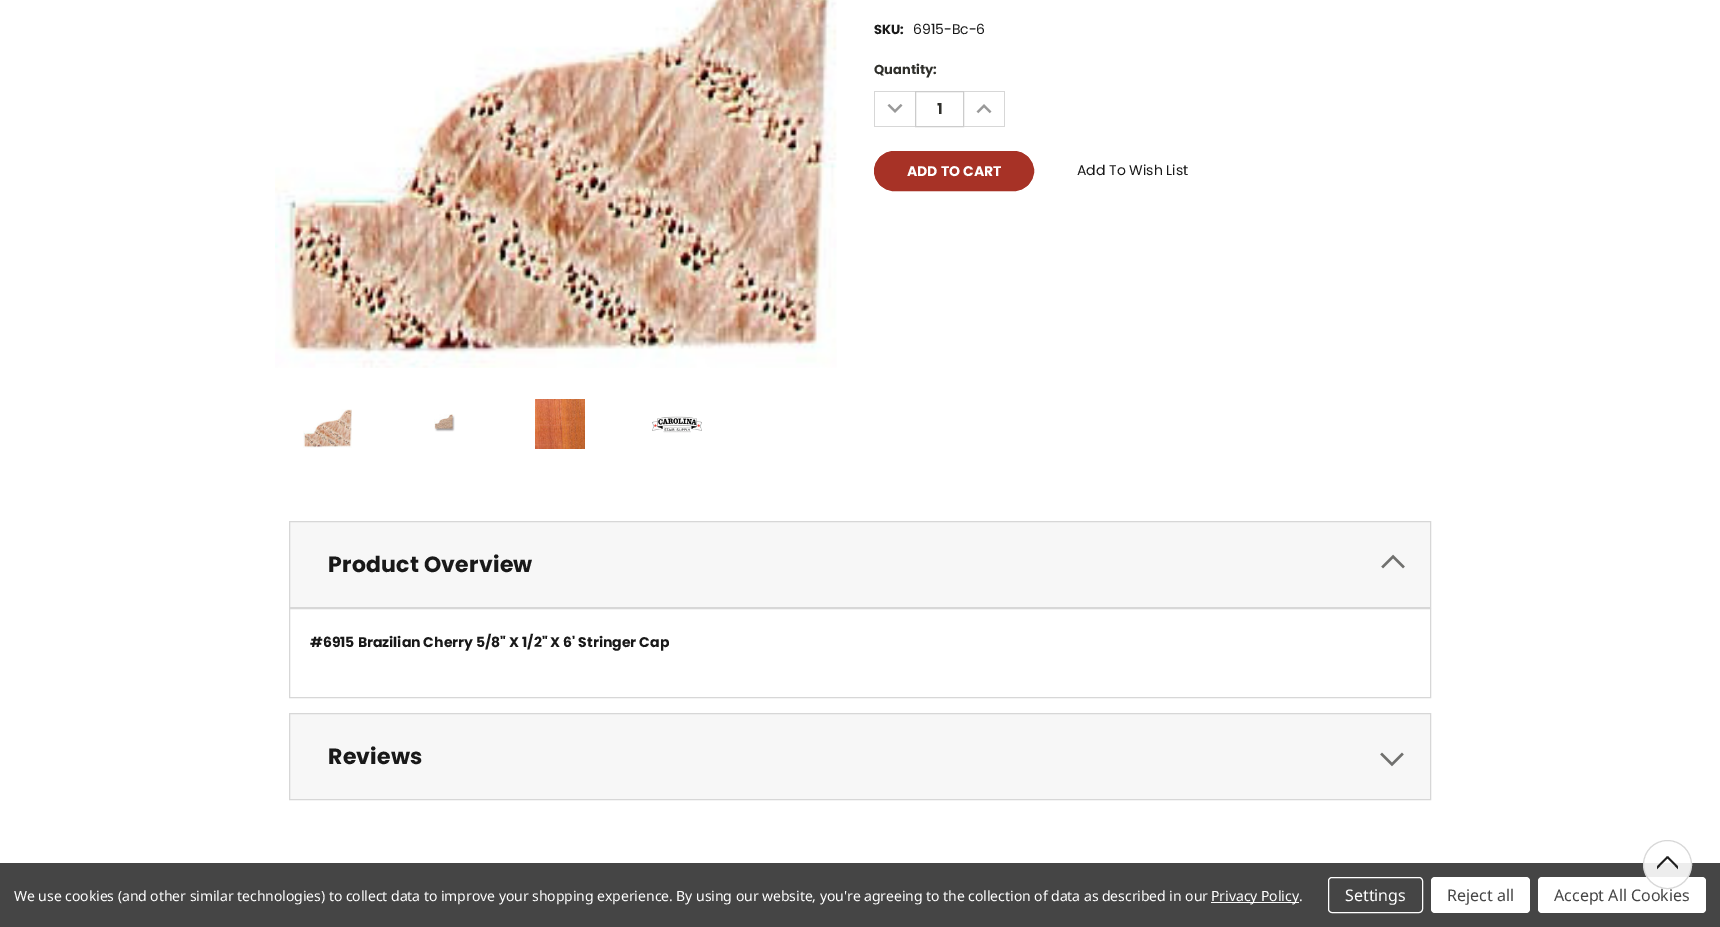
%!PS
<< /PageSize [1720 927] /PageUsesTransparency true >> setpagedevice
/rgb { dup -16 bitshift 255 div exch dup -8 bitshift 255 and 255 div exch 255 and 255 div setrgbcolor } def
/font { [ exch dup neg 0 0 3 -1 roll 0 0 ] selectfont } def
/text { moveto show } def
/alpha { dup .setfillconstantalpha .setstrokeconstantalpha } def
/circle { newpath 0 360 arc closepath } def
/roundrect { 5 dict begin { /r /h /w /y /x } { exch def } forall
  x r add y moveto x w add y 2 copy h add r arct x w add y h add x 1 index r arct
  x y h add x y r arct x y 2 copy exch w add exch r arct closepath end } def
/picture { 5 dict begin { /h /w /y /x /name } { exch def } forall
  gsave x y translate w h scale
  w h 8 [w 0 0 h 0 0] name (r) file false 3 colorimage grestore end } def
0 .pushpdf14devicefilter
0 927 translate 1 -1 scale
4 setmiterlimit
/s1 { /Poppins-Bold 13 font 16#191919 rgb } def
/s2 { /Poppins-Regular 14 font 16#191919 rgb } def
/s3 { /Poppins-Bold 13 font 16#2F2F2B rgb } def
/s4 { /Poppins-Bold 15 font 16#2F2F2B rgb } def
/s5 { /Poppins-Bold 14 font 16#FFFFFF rgb } def
/s6 { /Poppins-Bold 14 font 16#191919 rgb } def
/s7 { /NotoSans-Regular 16 font 16#454545 rgb } def
/s8 { /NotoSans-Regular 16 font 16#FFFFFF rgb } def
16#FFFFFF rgb
0 0 1720 927 rectfill
(pic1.raw) 275 0 562 368 picture
(pic2.raw) 303 409 49 39 picture
(pic3.raw) 434 414 21 18 picture
(pic4.raw) 535 399 50 50 picture
(pic5.raw) 652 416 50 17 picture
s1
(SKU:) 874 34 text
s2
(6915-Bc-6) 913 34 text
s3
(Quantity:) 874 74 text
16#D7D7D7 rgb
874 91 41 1 rectfill
874 126 41 1 rectfill
874 91 1 36 rectfill
(pic6.raw) 887 104 16 9 picture
16#CCCCCC rgb
915.5 91.5 48 35 rectstroke
s4
(1) 937 114 text
16#D7D7D7 rgb
964 91 41 1 rectfill
1004 91 1 36 rectfill
964 126 41 1 rectfill
(pic7.raw) 976 104 16 10 picture
16#A73226 rgb
874.5 151.5 159 39 19.5 roundrect gsave fill grestore
stroke
s5
(ADD TO CART) 907 176 text
s2
(Add To Wish List) 1077 175 text
16#F7F7F7 rgb
289.5 521.5 moveto 1430.5 521.5 lineto 1430.5 607.5 lineto 289.5 607.5 lineto closepath gsave fill grestore
16#D7D7D7 rgb
stroke
/Poppins-Bold 22 font
16#191919 rgb
328 572 moveto 0.25 0 (Product Overview) ashow
(pic8.raw) 1381 554 24 15 picture
16#D7D7D7 rgb
289.5 608.5 1141 89 rectstroke
s6
(#6915 Brazilian Cherry 5/8" X 1/2" X 6' Stringer Cap) 310 647 text
16#F7F7F7 rgb
289.5 713.5 moveto 1430.5 713.5 lineto 1430.5 799.5 lineto 289.5 799.5 lineto closepath gsave fill grestore
16#D7D7D7 rgb
stroke
/Poppins-Bold 22 font
16#191919 rgb
328 764 moveto 0.25 0 (Reviews) ashow
(pic9.raw) 1380 752 24 15 picture
16#454545 rgb
0 863 1720 64 rectfill
16#FFFFFF rgb
1538 877 168 36 4 roundrect fill
s7
(Accept All Cookies) 1554 901 text
0.9 alpha
16#FFFFFF rgb
1667.5 864.5 24 circle fill
1 alpha
16#D7D7D7 rgb
1667.5 864.5 24 circle stroke
gsave
1678 855.5 moveto 1678 876.5 lineto 1657 876.5 lineto 1657 855.5 lineto closepath clip newpath
16#1F1F1F rgb
1.8 setlinewidth
1 setlinecap
1 setlinejoin
1685 875 moveto 1667.5 857 lineto 1650 875 lineto stroke
grestore
/NotoSans-Regular 14 font
16#FFFFFF rgb
14 901 moveto -0.05 0 (We use cookies \(and other similar technologies\) to collect data to improve your shopping experience. By using our website, you're agreeing to the collection of data as described in our) ashow
1211 902 88 1 rectfill
1211 901 moveto -0.05 0 (Privacy Policy.) ashow
1328.5 877.5 94 35 3.5 roundrect stroke
s8
(Settings) 1345 901 text
1431 877 99 36 4 roundrect fill
s7
(Reject all) 1447 901 text
.poppdf14devicefilter showpage
